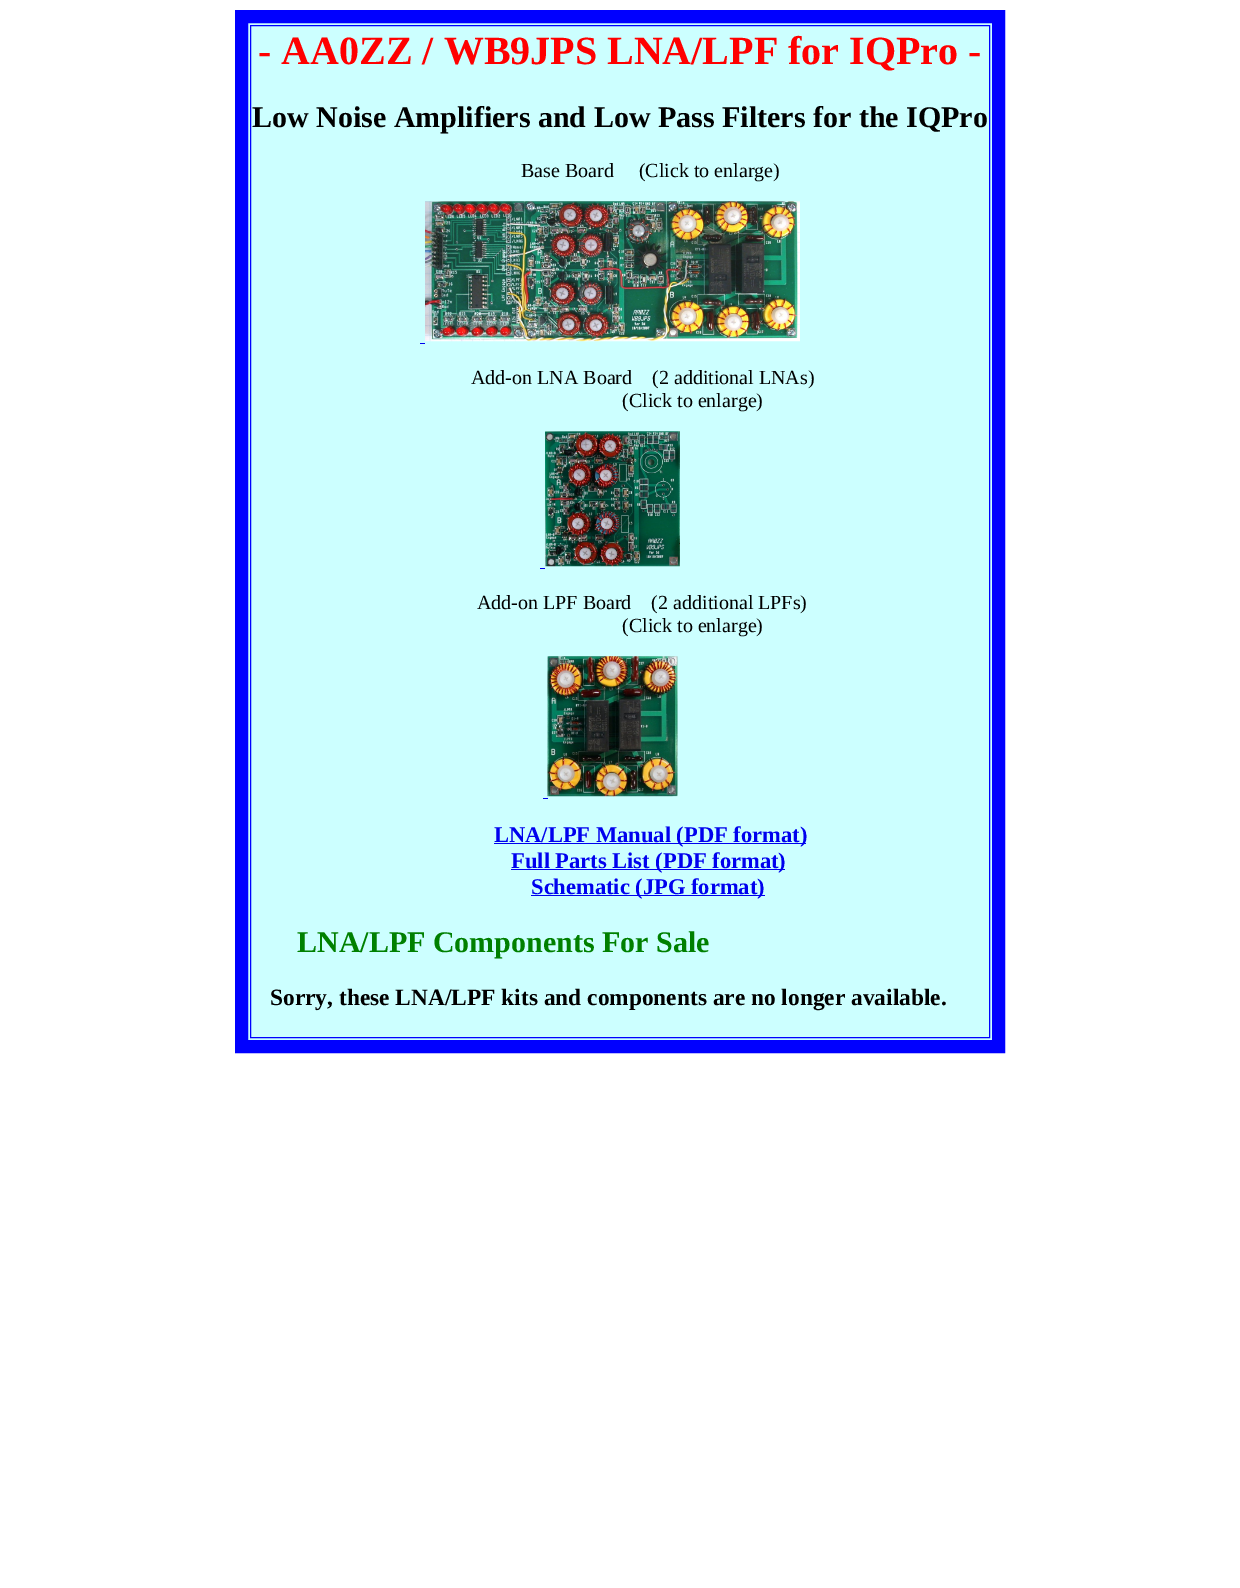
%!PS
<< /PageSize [1240 1588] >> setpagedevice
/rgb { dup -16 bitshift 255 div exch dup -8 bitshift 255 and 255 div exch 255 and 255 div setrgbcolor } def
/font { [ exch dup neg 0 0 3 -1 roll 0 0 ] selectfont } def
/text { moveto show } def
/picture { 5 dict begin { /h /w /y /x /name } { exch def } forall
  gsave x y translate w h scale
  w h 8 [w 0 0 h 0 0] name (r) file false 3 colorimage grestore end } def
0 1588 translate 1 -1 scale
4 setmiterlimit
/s1 { /LiberationSerif-Bold 40 font 16#FF0000 rgb } def
/s2 { /LiberationSerif-Bold 30 font 16#000000 rgb } def
/s3 { /LiberationSerif-Regular 20 font 16#000000 rgb } def
/s4 { /LiberationSerif-Bold 22.5 font 16#0000EE rgb } def
/s5 { /LiberationSerif-Bold 30 font 16#008000 rgb } def
/s6 { /LiberationSerif-Bold 23.4 font 16#000000 rgb } def
16#FFFFFF rgb
0 0 1240 1588 rectfill
16#CCFFFF rgb
241.5 16.5 moveto 998.5 16.5 lineto 998.5 1046.5 lineto 241.5 1046.5 lineto closepath gsave fill grestore
16#0000FF rgb
13 setlinewidth
stroke
1 setlinewidth
250.5 25.5 739 1012 rectstroke
s1
(- AA0ZZ / WB9JPS LNA/LPF for IQPro -) 258 64 text
s2
(Low Noise Amplifiers and Low Pass Filters for the IQPro) 252 127 text
s3
(Base Board     \(Click to enlarge\)) 521 177 text
(pic1.raw) 425 201 375 141 picture
16#0000EE rgb
420 343 5 1 rectfill
s3
(Add-on LNA Board    \(2 additional LNAs\)) 471 384 text
(\(Click to enlarge\)) 622 407 text
(pic2.raw) 545 431 135 136 picture
16#0000EE rgb
540 568 5 1 rectfill
s3
(Add-on LPF Board    \(2 additional LPFs\)) 477 609 text
(\(Click to enlarge\)) 622 632 text
(pic3.raw) 547 656 131 141 picture
16#0000EE rgb
543 798 5 1 rectfill
494 843 312 1 rectfill
s4
(LNA/LPF Manual \(PDF format\)) 494 842 text
511 869 274 1 rectfill
(Full Parts List \(PDF format\)) 511 868 text
531 895 234 1 rectfill
(Schematic \(JPG format\)) 531 894 text
s5
(LNA/LPF Components For Sale) 297 952 text
s6
(Sorry, these LNA/LPF kits and components are no longer available.) 270 1005 text
showpage
